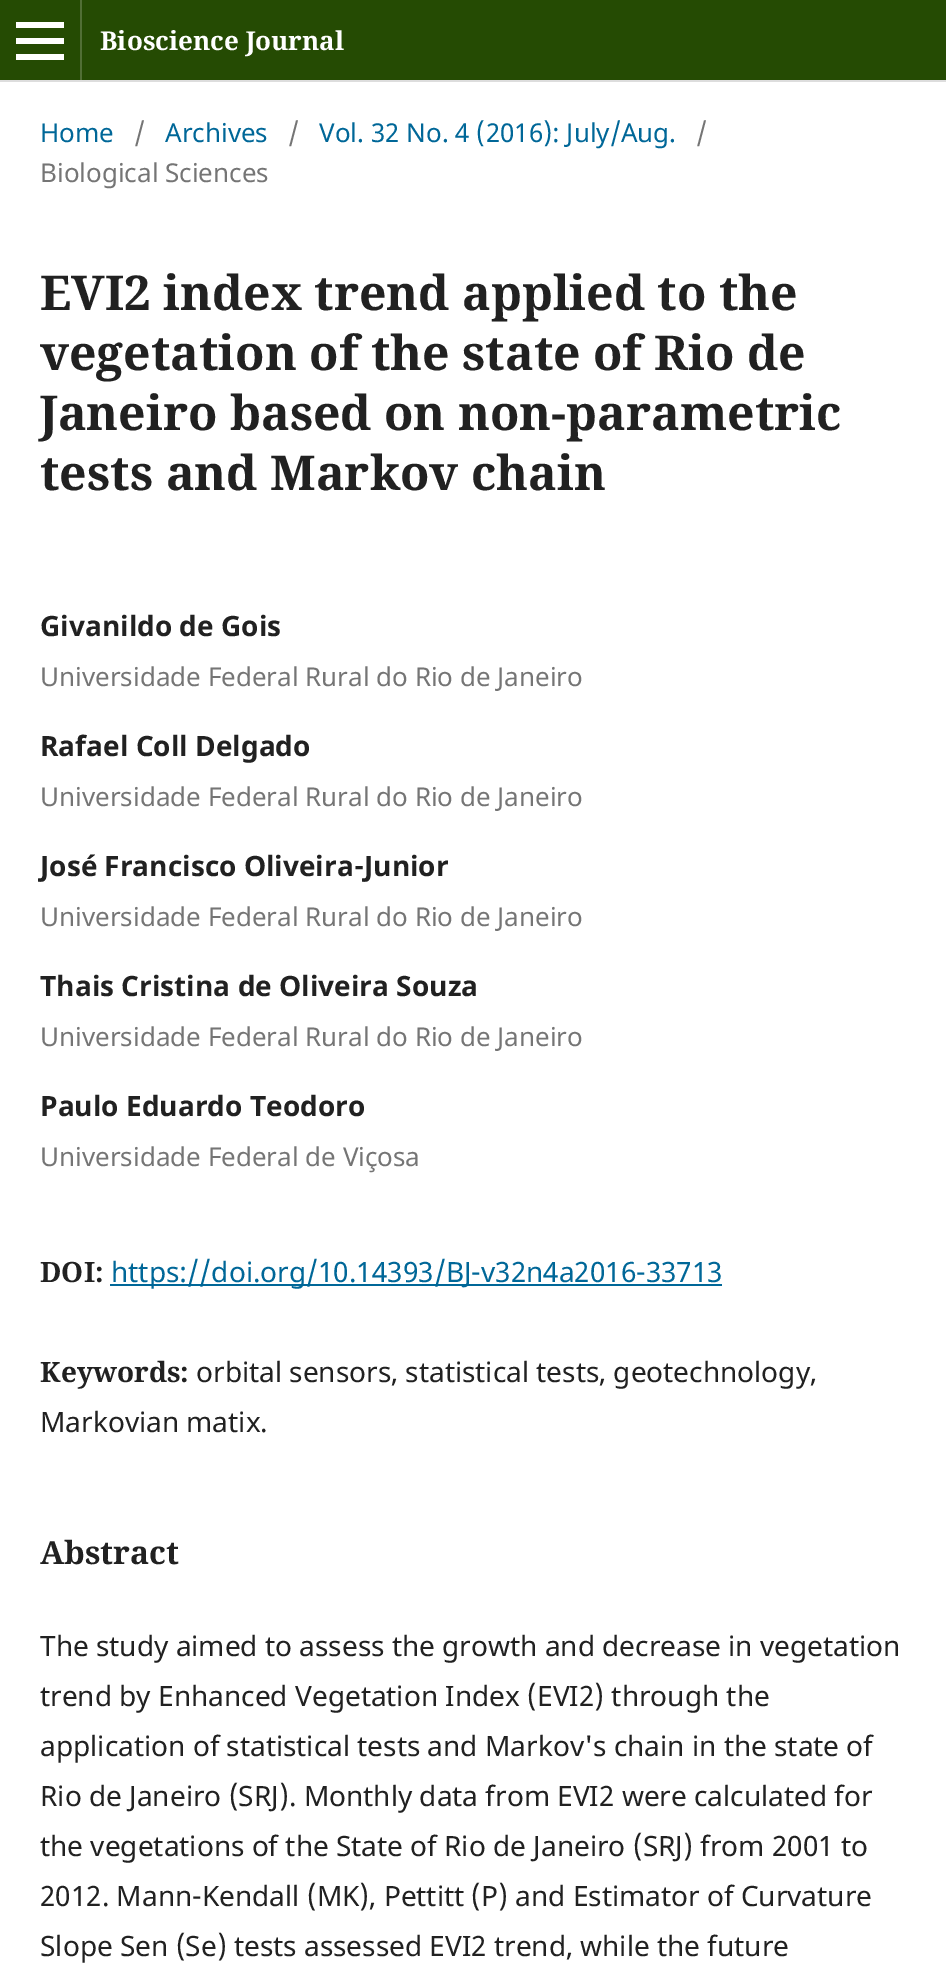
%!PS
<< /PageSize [946 1984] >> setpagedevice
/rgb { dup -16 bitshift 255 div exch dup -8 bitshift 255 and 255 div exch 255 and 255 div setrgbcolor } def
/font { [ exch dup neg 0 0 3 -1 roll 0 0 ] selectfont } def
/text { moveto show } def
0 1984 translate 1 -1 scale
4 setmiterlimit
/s1 { /NotoSerif-Bold 26 font 16#FFFFFF rgb } def
/s2 { /NotoSans-Regular 26 font 16#006798 rgb } def
/s3 { /NotoSans-Regular 26 font 16#757575 rgb } def
/s4 { /NotoSerif-Bold 48 font 16#212121 rgb } def
/s5 { /NotoSans-Bold 28 font 16#212121 rgb } def
/s6 { /NotoSerif-Bold 28 font 16#212121 rgb } def
/s7 { /NotoSans-Regular 28 font 16#006798 rgb } def
/s8 { /NotoSans-Regular 28 font 16#212121 rgb } def
/s9 { /NotoSerif-Bold 32 font 16#212121 rgb } def
16#FFFFFF rgb
0 0 946 1984 rectfill
16#254B03 rgb
0 0 946 80 rectfill
16#DDDDDD rgb
0 80 946 2 rectfill
16#516F35 rgb
80 0 2 80 rectfill
16#FFFFFF rgb
16 54 48 6 rectfill
16 22 48 6 rectfill
16 38 48 6 rectfill
s1
(Bioscience Journal) 100 50 text
s2
(Home) 40 142 text
s3
(/) 134 142 text
s2
(Archives) 165 142 text
s3
(/) 288 142 text
s2
(Vol. 32 No. 4 \(2016\): July/Aug.) 319 142 text
s3
(/) 696 142 text
(Biological Sciences) 40 182 text
s4
(EVI2 index trend applied to the) 40 310 text
(vegetation of the state of Rio de) 40 370 text
(Janeiro based on non-parametric) 40 430 text
(tests and Markov chain) 40 490 text
s5
(Givanildo de Gois) 40 636 text
s3
(Universidade Federal Rural do Rio de Janeiro) 40 686 text
s5
(Rafael Coll Delgado) 40 756 text
s3
(Universidade Federal Rural do Rio de Janeiro) 40 806 text
s5
(José Francisco Oliveira-Junior) 40 876 text
s3
(Universidade Federal Rural do Rio de Janeiro) 40 926 text
s5
(Thais Cristina de Oliveira Souza) 40 996 text
s3
(Universidade Federal Rural do Rio de Janeiro) 40 1046 text
s5
(Paulo Eduardo Teodoro) 40 1116 text
s3
(Universidade Federal de Viçosa) 40 1166 text
s6
(DOI:) 40 1282 text
16#006798 rgb
110 1284 612 2 rectfill
s7
(https://doi.org/10.14393/BJ-v32n4a2016-33713) 111 1282 text
s6
(Keywords:) 40 1382 text
s8
(orbital sensors, statistical tests, geotechnology,) 196 1382 text
(Markovian matix.) 40 1432 text
s9
(Abstract) 40 1564 text
s8
(The study aimed to assess the growth and decrease in vegetation) 40 1656 text
(trend by Enhanced Vegetation Index \(EVI2\) through the) 40 1706 text
(application of statistical tests and Markov's chain in the state of) 40 1756 text
(Rio de Janeiro \(SRJ\). Monthly data from EVI2 were calculated for) 40 1806 text
(the vegetations of the State of Rio de Janeiro \(SRJ\) from 2001 to) 40 1856 text
(2012. Mann-Kendall \(MK\), Pettitt \(P\) and Estimator of Curvature) 40 1906 text
(Slope Sen \(Se\) tests assessed EVI2 trend, while the future) 40 1956 text
showpage
